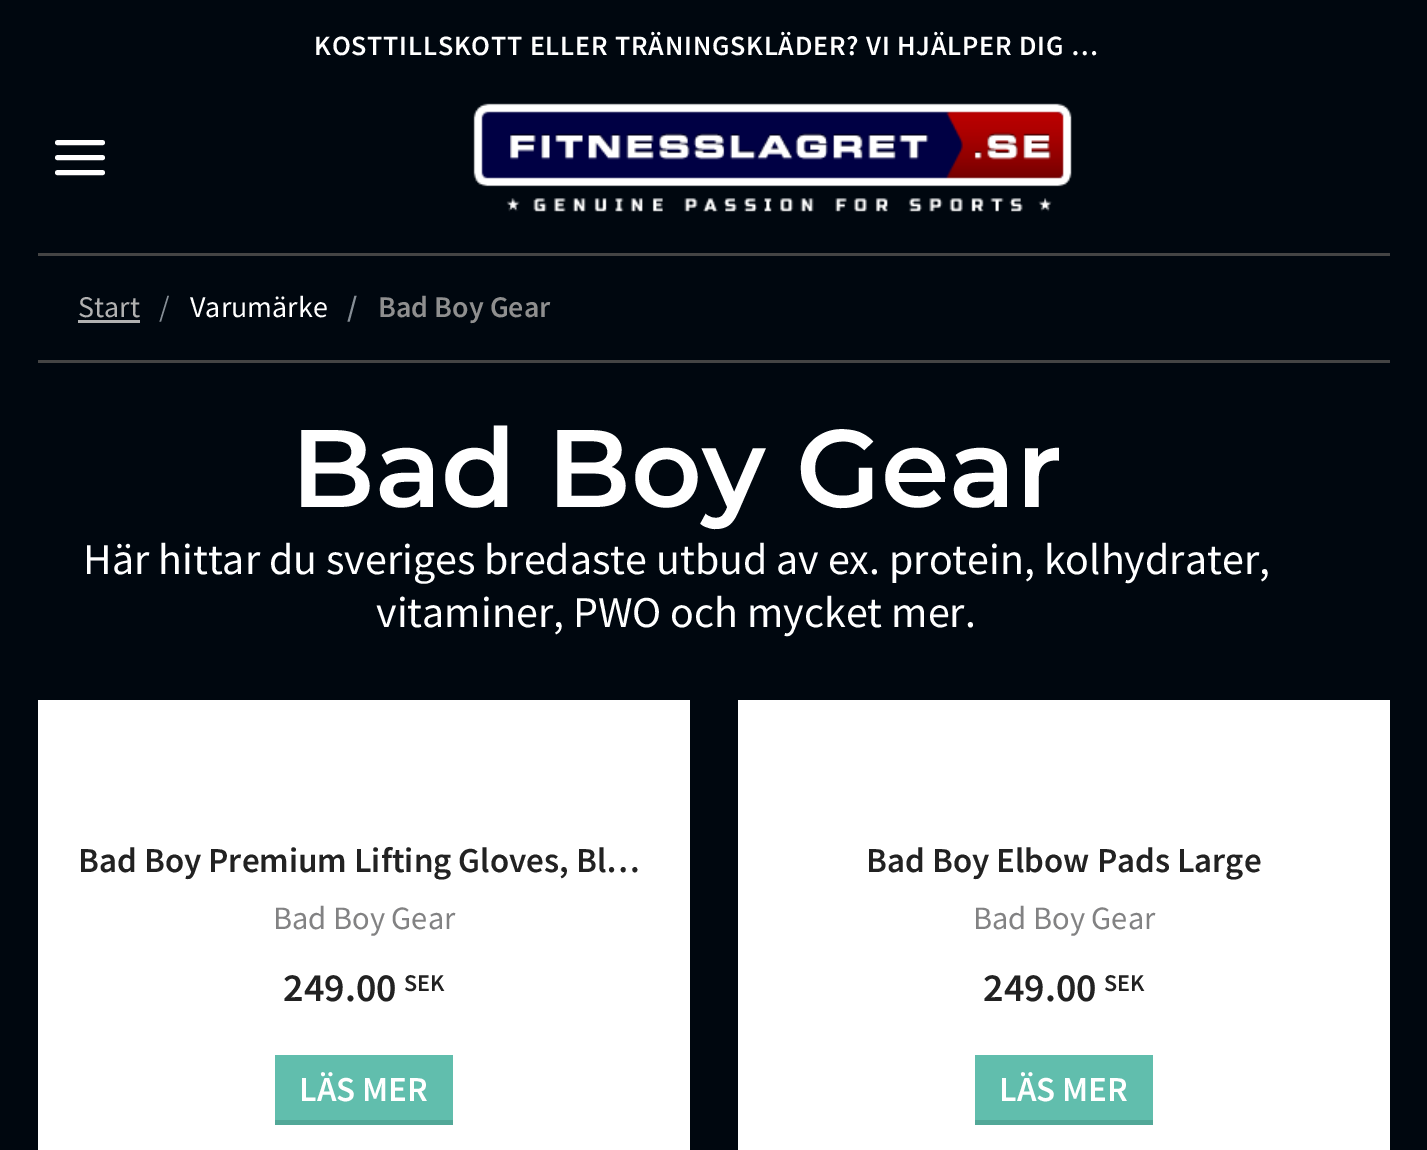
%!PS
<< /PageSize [1427 1150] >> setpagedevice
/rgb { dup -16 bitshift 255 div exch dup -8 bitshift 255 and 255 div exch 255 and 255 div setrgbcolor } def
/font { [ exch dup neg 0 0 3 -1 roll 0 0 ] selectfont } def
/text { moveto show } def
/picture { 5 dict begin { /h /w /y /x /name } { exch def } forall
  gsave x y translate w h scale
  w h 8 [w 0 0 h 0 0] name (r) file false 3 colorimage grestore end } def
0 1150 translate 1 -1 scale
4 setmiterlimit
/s1 { /SourceSansPro-Regular 30 font 16#B1B1B1 rgb } def
/s2 { /SourceSansPro-Regular 30 font 16#868E96 rgb } def
/s3 { /SourceSansPro-Regular 30 font 16#FFFFFF rgb } def
/s4 { /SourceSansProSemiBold-SemiBold 30 font 16#868E96 rgb } def
/s5 { /SourceSansProSemiBold-SemiBold 30 font 16#8F8F8F rgb } def
/s6 { /Montserrat-Thin 110 font 16#FFFFFF rgb } def
/s7 { /SourceSansPro-Regular 44 font 16#FFFFFF rgb } def
/s8 { /SourceSansProSemiBold-SemiBold 35 font 16#222222 rgb } def
/s9 { /SourceSansPro-Regular 32.5 font 16#828283 rgb } def
/s10 { /SourceSansProSemiBold-SemiBold 40 font 16#222222 rgb } def
/s11 { /SourceSansProSemiBold-SemiBold 24 font 16#222222 rgb } def
/s12 { /SourceSansProSemiBold-SemiBold 35 font 16#FFFFFF rgb } def
16#00070F rgb
0 0 1427 1150 rectfill
/SourceSansProSemiBold-SemiBold 28 font
16#FFFFFF rgb
314 55 moveto 0.8 0 (KOSTTILLSKOTT ELLER TRÄNINGSKLÄDER? VI HJÄLPER DIG …) ashow
5 setlinewidth
1 setlinecap
1 setlinejoin
57.5 157.5 moveto 102.5 157.5 lineto 57.5 142.5 moveto 102.5 142.5 lineto 57.5 172.5 moveto 102.5 172.5 lineto stroke
(pic1.raw) 473 103 599 109 picture
16#444444 rgb
38 253 1352 3 rectfill
38 360 1352 3 rectfill
s1
(Start) 78 317 text
78 320 62 3 rectfill
s2
(/) 159 317 text
s3
(Varumärke) 190 317 text
s4
(/) 347 317 text
s5
(Bad Boy Gear) 378 317 text
s6
(Bad Boy Gear) 291 507 text
s7
(Här hittar du sveriges bredaste utbud av ex. protein, kolhydrater,) 83 574 text
(vitaminer, PWO och mycket mer.) 376 627 text
38 700 652 450 rectfill
s8
(Bad Boy Premium Lifting Gloves, Bl…) 78 872 text
s9
(Bad Boy Gear) 273 929 text
s10
(249.00) 283 1001 text
s11
(SEK) 404 991 text
16#61BEAD rgb
275 1055 178 65 rectfill
s12
(LÄS MER) 299 1101 text
16#52A898 rgb
275 1120 178 5 rectfill
16#FFFFFF rgb
738 700 652 450 rectfill
s8
(Bad Boy Elbow Pads Large) 866 872 text
s9
(Bad Boy Gear) 973 929 text
s10
(249.00) 983 1001 text
s11
(SEK) 1104 991 text
16#61BEAD rgb
975 1055 178 65 rectfill
s12
(LÄS MER) 999 1101 text
16#52A898 rgb
975 1120 178 5 rectfill
showpage
